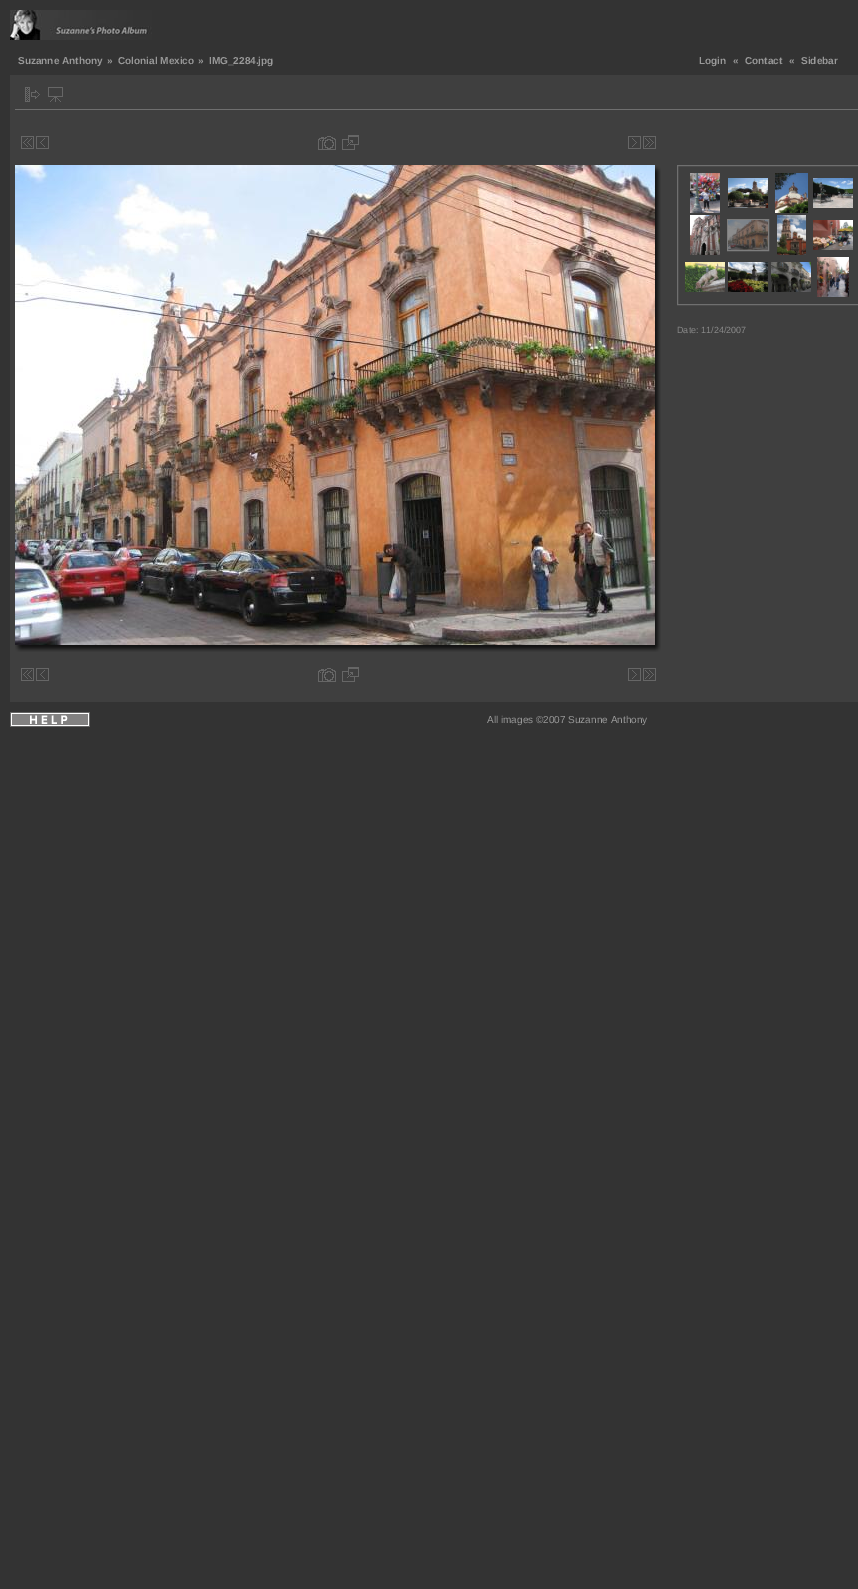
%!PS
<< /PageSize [858 1589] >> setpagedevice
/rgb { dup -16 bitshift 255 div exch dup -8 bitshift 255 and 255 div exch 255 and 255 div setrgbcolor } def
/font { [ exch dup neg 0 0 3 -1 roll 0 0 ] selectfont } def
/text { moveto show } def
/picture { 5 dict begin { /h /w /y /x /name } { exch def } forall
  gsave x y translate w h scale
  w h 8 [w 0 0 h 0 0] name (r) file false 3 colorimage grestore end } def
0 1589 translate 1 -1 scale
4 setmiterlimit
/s1 { /LiberationSans-Bold 10 font 16#999999 rgb } def
/s2 { /LiberationSans-Regular 9 font 16#888888 rgb } def
/s3 { /LiberationSans-Regular 10 font 16#999999 rgb } def
16#333333 rgb
0 0 858 1589 rectfill
(pic1.raw) 10 10 142 30 picture
s1
(Suzanne Anthony) 18 64 text
(») 107 64 text
(Colonial Mexico) 118 64 text
(») 198 64 text
(IMG_2284.jpg) 209 64 text
(Login) 699 64 text
(«) 733 64 text
(Contact) 745 64 text
(«) 789 64 text
(Sidebar) 801 64 text
16#3F3F3F rgb
10 75 848 627 rectfill
16#6F6F6F rgb
15 109 843 1 rectfill
(pic2.raw) 25 87 15 15 picture
(pic3.raw) 48 87 15 15 picture
(pic4.raw) 21 136 13 13 picture
(pic5.raw) 36 136 13 13 picture
(pic6.raw) 318 136 18 14 picture
(pic7.raw) 342 135 17 15 picture
(pic8.raw) 628 136 13 13 picture
(pic9.raw) 643 136 13 13 picture
(pic10.raw) 15 165 640 480 picture
(pic11.raw) 655 166 6 9 picture
(pic12.raw) 655 175 6 470 picture
(pic13.raw) 15 645 9 7 picture
(pic14.raw) 24 645 631 7 picture
(pic15.raw) 655 645 6 7 picture
677.5 165.5 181 139 rectstroke
(pic16.raw) 690 173 30 40 picture
(pic17.raw) 728 178 40 30 picture
(pic18.raw) 775 173 33 40 picture
(pic19.raw) 813 178 40 30 picture
(pic20.raw) 690 215 30 40 picture
16#7E7E7E rgb
727.5 219.5 41 31 rectstroke
(pic21.raw) 728 220 40 30 picture
(pic22.raw) 777 215 29 40 picture
(pic23.raw) 813 220 40 30 picture
(pic24.raw) 685 262 40 30 picture
(pic25.raw) 728 262 40 30 picture
(pic26.raw) 771 262 40 30 picture
(pic27.raw) 817 257 32 40 picture
s2
(Date: 11/24/2007) 677 333 text
(pic4.raw) 21 668 13 13 picture
(pic5.raw) 36 668 13 13 picture
(pic6.raw) 318 668 18 14 picture
(pic7.raw) 342 667 17 15 picture
(pic8.raw) 628 668 13 13 picture
(pic9.raw) 643 668 13 13 picture
(pic28.raw) 10 712 80 15 picture
s3
(All images ©2007 Suzanne Anthony) 487 723 text
showpage
